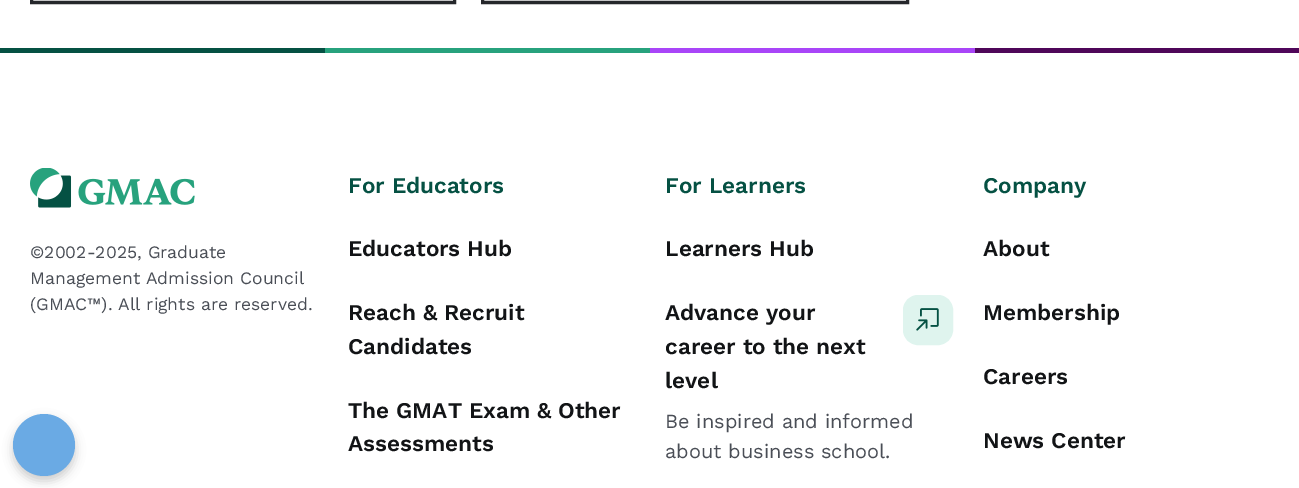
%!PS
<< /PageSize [1299 488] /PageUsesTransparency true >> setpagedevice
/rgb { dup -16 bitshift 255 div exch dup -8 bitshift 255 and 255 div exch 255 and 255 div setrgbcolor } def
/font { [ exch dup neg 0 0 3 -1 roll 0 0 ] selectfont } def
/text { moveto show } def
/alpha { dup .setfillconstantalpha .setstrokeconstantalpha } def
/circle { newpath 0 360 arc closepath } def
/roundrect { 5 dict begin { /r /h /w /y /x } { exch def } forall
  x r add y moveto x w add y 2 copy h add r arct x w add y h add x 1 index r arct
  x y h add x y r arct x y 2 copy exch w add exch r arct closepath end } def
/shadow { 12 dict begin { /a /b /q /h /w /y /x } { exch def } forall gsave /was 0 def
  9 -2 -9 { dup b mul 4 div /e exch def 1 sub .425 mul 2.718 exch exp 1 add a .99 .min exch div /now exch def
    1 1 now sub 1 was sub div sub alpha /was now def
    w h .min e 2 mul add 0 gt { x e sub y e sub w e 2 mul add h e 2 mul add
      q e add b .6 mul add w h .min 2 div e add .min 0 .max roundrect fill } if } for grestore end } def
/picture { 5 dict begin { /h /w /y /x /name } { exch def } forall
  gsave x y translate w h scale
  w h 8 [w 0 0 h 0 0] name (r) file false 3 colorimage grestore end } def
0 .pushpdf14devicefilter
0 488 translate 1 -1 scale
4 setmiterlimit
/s1 { /WorkSans-Regular 17.5 font 16#4A4E56 rgb } def
/s2 { /WorkSans-SemiBold 22.5 font 16#055143 rgb } def
/s3 { /WorkSans-SemiBold 22.5 font 16#121416 rgb } def
/s4 { /WorkSans-Regular 20 font 16#4A4E56 rgb } def
16#FFFFFF rgb
0 0 1299 488 rectfill
16#25272B rgb
3 setlinewidth
31.5 -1.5 423 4 rectstroke
482.5 -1.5 425 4 rectstroke
16#055143 rgb
0 48 325 5 rectfill
16#27A27D rgb
325 48 325 5 rectfill
16#A945F8 rgb
650 48 325 5 rectfill
16#4F0759 rgb
975 48 324 5 rectfill
(pic1.raw) 30 168 165 40 picture
s1
(©2002-2025, Graduate) 30 258 text
(Management Admission Council) 30 284 text
(\(GMAC™\). All rights are reserved.) 30 310 text
s2
(For Educators) 348 193 text
s3
(Educators Hub) 348 256 text
(Reach & Recruit) 348 320 text
(Candidates) 348 354 text
(The GMAT Exam & Other) 348 418 text
(Assessments) 348 451 text
s2
(For Learners) 665 193 text
s3
(Learners Hub) 665 256 text
(Advance your) 665 320 text
(career to the next) 665 354 text
(level) 665 388 text
16#DFF4EE rgb
903.5 295.5 49 49 14.5 roundrect gsave fill grestore
1 setlinewidth
stroke
(pic2.raw) 916 308 23 23 picture
s4
(Be inspired and informed) 665 428 text
(about business school.) 665 458 text
s2
(Company) 983 193 text
s3
(About) 983 256 text
(Membership) 983 320 text
(Careers) 983 384 text
(News Center) 983 448 text
16#000000 rgb
13 419 62 62 31 5 0.2 shadow
16#6AAAE4 rgb
44 445 31 circle fill
.poppdf14devicefilter showpage
